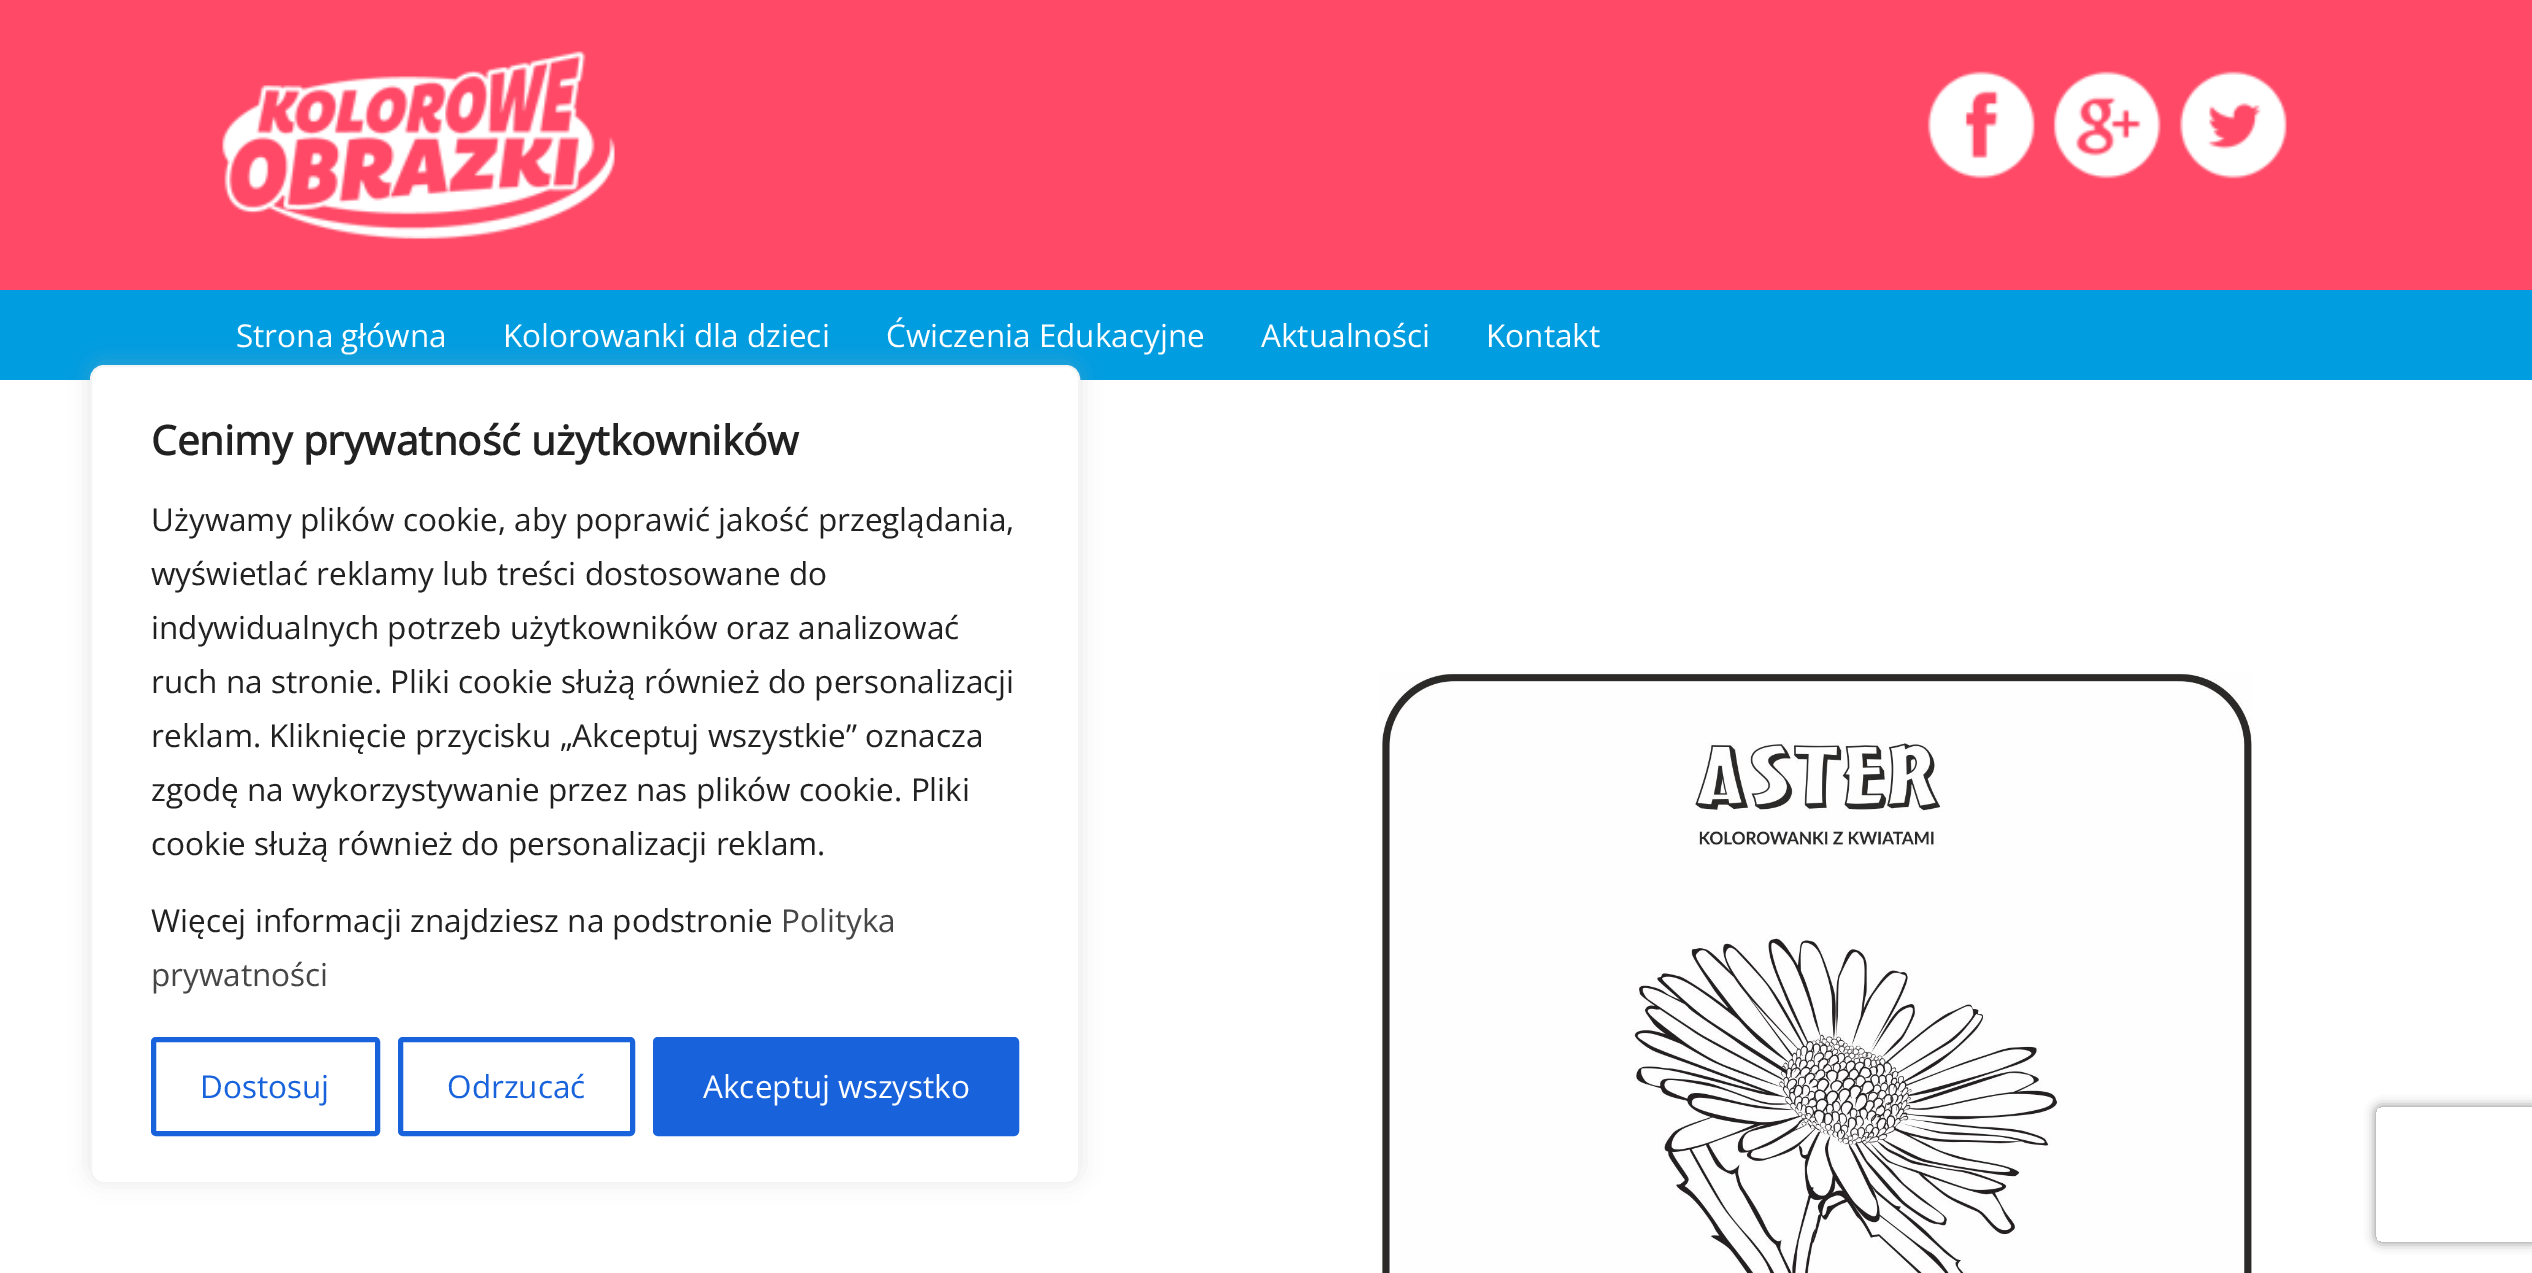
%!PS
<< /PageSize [2532 1273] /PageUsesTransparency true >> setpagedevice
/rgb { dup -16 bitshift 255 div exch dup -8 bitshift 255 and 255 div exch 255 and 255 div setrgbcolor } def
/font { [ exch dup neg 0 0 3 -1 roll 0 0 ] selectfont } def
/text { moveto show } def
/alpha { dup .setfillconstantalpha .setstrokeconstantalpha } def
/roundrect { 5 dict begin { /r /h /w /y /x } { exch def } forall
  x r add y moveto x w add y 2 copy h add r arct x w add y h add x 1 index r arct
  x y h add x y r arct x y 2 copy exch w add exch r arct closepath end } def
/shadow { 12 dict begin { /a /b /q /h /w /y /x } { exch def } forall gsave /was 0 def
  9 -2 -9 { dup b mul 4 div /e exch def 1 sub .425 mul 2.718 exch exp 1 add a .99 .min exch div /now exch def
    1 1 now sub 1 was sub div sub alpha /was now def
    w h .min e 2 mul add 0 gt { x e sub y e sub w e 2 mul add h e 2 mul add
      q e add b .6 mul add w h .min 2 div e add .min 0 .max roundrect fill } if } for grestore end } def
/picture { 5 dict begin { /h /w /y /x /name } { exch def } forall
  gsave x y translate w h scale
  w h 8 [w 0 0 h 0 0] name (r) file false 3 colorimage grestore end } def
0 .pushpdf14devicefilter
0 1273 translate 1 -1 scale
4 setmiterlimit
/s1 { /OpenSans-Regular 31.5 font 16#FFFFFF rgb } def
/s2 { /OpenSans-Bold 40.5 font 16#212121 rgb } def
/s3 { /OpenSans-Regular 31.5 font 16#212121 rgb } def
/s4 { /OpenSans-Regular 31.5 font 16#464646 rgb } def
/s5 { /OpenSans-Regular 31.5 font 16#1863DC rgb } def
16#FFFFFF rgb
0 0 2532 1273 rectfill
16#FF4967 rgb
0 0 2532 290 rectfill
(pic1.raw) 222 51 393 189 picture
(pic2.raw) 1927 71 108 108 picture
(pic3.raw) 2053 71 108 108 picture
(pic4.raw) 2179 71 108 108 picture
16#009DE0 rgb
0 290 2532 90 rectfill
s1
(Strona główna) 236 347 text
(Kolorowanki dla dzieci) 503 347 text
(Ćwiczenia Edukacyjne) 886 347 text
(Aktualności) 1261 347 text
(Kontakt) 1486 347 text
16#ACABAB rgb
90 362 990 819 14 11 0.3 shadow
16#FFFFFF rgb
91 366 988 817 13 roundrect gsave fill grestore
16#F4F4F4 rgb
2 setlinewidth
stroke
s2
(Cenimy prywatność użytkowników) 151 455 text
s3
(Używamy plików cookie, aby poprawić jakość przeglądania,) 151 531 text
(wyświetlać reklamy lub treści dostosowane do) 151 585 text
(indywidualnych potrzeb użytkowników oraz analizować) 151 639 text
(ruch na stronie. Pliki cookie służą również do personalizacji) 151 693 text
(reklam. Kliknięcie przycisku „Akceptuj wszystkie” oznacza) 151 747 text
(zgodę na wykorzystywanie przez nas plików cookie. Pliki) 151 801 text
(cookie służą również do personalizacji reklam.) 151 855 text
(Więcej informacji znajdziesz na podstronie) 151 932 text
s4
(Polityka) 781 932 text
(prywatności) 151 986 text
16#1863DC rgb
5 setlinewidth
153.5 1039.5 224 94 2.5 roundrect stroke
(Dostosuj) 200 1098 text
400.5 1039.5 232 94 2.5 roundrect stroke
(Odrzucać) 447 1098 text
655.5 1039.5 361 94 2.5 roundrect gsave fill grestore
stroke
s1
(Akceptuj wszystko) 703 1098 text
(pic5.raw) 1380 672 872 601 picture
gsave
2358 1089 moveto 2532 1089 lineto 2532 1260 lineto 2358 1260 lineto closepath 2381 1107 moveto 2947 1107 lineto 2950 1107 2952 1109 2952 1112 curveto 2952 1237 lineto 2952 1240 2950 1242 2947 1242 curveto 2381 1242 lineto 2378 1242 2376 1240 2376 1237 curveto 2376 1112 lineto 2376 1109 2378 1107 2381 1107 curveto closepath eoclip newpath
16#808080 rgb
2376 1107 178 135 5 5.5 1 shadow
grestore
.poppdf14devicefilter showpage
